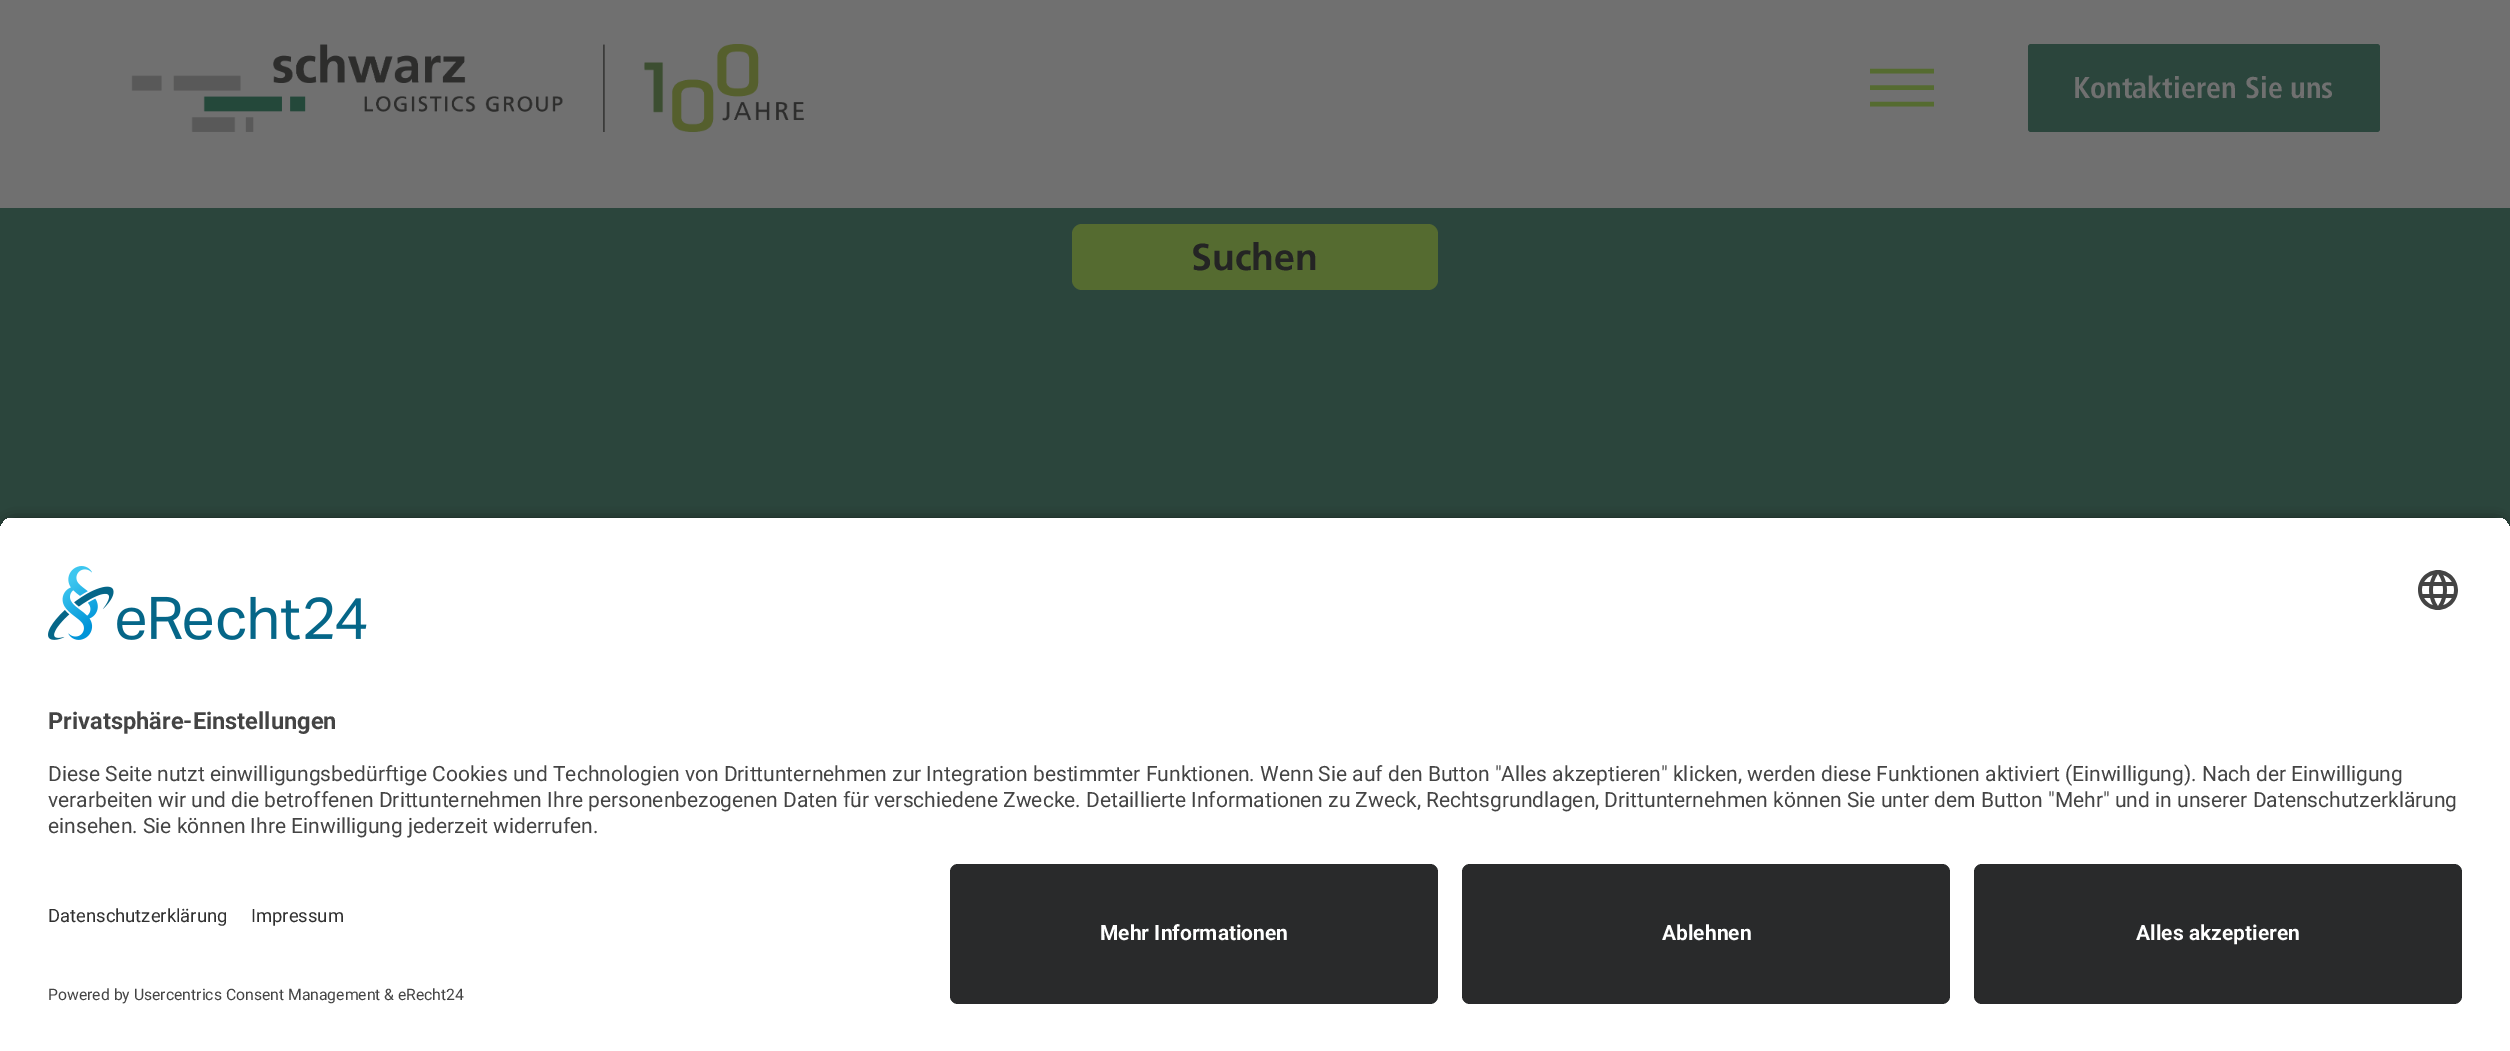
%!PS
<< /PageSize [2510 1051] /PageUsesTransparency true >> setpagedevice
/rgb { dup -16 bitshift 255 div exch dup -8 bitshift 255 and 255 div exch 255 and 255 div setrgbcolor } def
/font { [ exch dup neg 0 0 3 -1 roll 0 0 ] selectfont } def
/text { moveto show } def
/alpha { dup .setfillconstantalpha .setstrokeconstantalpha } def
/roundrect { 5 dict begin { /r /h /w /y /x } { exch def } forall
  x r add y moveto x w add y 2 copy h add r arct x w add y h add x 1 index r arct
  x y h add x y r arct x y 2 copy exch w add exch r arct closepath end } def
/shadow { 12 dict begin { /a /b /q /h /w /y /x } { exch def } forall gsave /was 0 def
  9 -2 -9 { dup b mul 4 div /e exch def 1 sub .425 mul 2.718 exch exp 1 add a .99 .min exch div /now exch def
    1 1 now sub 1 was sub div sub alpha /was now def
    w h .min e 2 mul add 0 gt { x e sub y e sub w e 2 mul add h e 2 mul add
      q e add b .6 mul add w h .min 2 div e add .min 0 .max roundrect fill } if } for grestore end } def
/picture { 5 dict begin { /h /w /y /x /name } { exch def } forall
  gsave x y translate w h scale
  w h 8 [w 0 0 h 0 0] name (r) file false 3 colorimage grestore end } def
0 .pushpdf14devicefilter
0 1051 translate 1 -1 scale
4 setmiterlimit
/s1 { /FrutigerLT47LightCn-Bold 30 font 16#707070 rgb } def
/s2 { /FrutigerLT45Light-Bold 37.5 font 16#242424 rgb } def
/s3 { /Roboto-Bold 23.6 font 16#444444 rgb } def
/s4 { /Roboto-Regular 21 font 16#444444 rgb } def
/s5 { /Roboto-Regular 18.4 font 16#303030 rgb } def
/s6 { /Roboto-Regular 15.75 font 16#444444 rgb } def
/s7 { /Roboto-Bold 21 font 16#FFFFFF rgb } def
16#2B453C rgb
0 0 2510 1051 rectfill
16#707070 rgb
0 0 2510 208 rectfill
(pic1.raw) 131 44 673 88 picture
gsave
1870 68 64 40 rectclip
16#556B30 rgb
4.5 setlinewidth
1 setlinecap
1870 71 moveto 1934.5 71 lineto 1870 87.5 moveto 1934.5 87.5 lineto 1870 104 moveto 1934.5 104 lineto stroke
grestore
16#2B453C rgb
2028 44 352 88 3 roundrect fill
s1
(Kontaktieren Sie uns) 2073 98 text
16#556B30 rgb
1072 224 366 66 10 roundrect fill
s2
(Suchen) 1191 270 text
16#000000 rgb
0 522 2510 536 16 7 0.8 shadow
gsave
16 516 moveto 2494 516 lineto 2503 516 2510 523 2510 532 curveto 2510 848 lineto 0 848 lineto 0 532 lineto 0 523 7 516 16 516 curveto closepath clip newpath
16#FFFFFF rgb
0 518 2510 330 rectfill
grestore
(pic2.raw) 48 566 319 74 picture
(pic3.raw) 2418 570 40 40 picture
s3
(Privatsphäre-Einstellungen) 48 729 text
s4
(Diese Seite nutzt einwilligungsbedürftige Cookies und Technologien von Drittunternehmen zur Integration bestimmter Funktionen. Wenn Sie auf den Button "Alles akzeptieren" klicken, werden diese Funktionen aktiviert \(Einwilligung\). Nach der Einwilligung) 48 781 text
(verarbeiten wir und die betroffenen Drittunternehmen Ihre personenbezogenen Daten für verschiedene Zwecke. Detaillierte Informationen zu Zweck, Rechtsgrundlagen, Drittunternehmen können Sie unter dem Button "Mehr" und in unserer Datenschutzerklärung) 48 807 text
(einsehen. Sie können Ihre Einwilligung jederzeit widerrufen.) 48 833 text
16#FFFFFF rgb
0 848 2510 203 rectfill
s5
(Datenschutzerklärung) 48 922 text
(Impressum) 251 922 text
s6
(Powered by Usercentrics Consent Management) 48 1000 text
(& eRecht24) 384 1000 text
16#292A2B rgb
950 864 488 140 8 roundrect fill
s7
(Mehr Informationen) 1100 940 text
16#292A2B rgb
1462 864 488 140 8 roundrect fill
s7
(Ablehnen) 1662 940 text
16#292A2B rgb
1974 864 488 140 8 roundrect fill
s7
(Alles akzeptieren) 2136 940 text
.poppdf14devicefilter showpage
